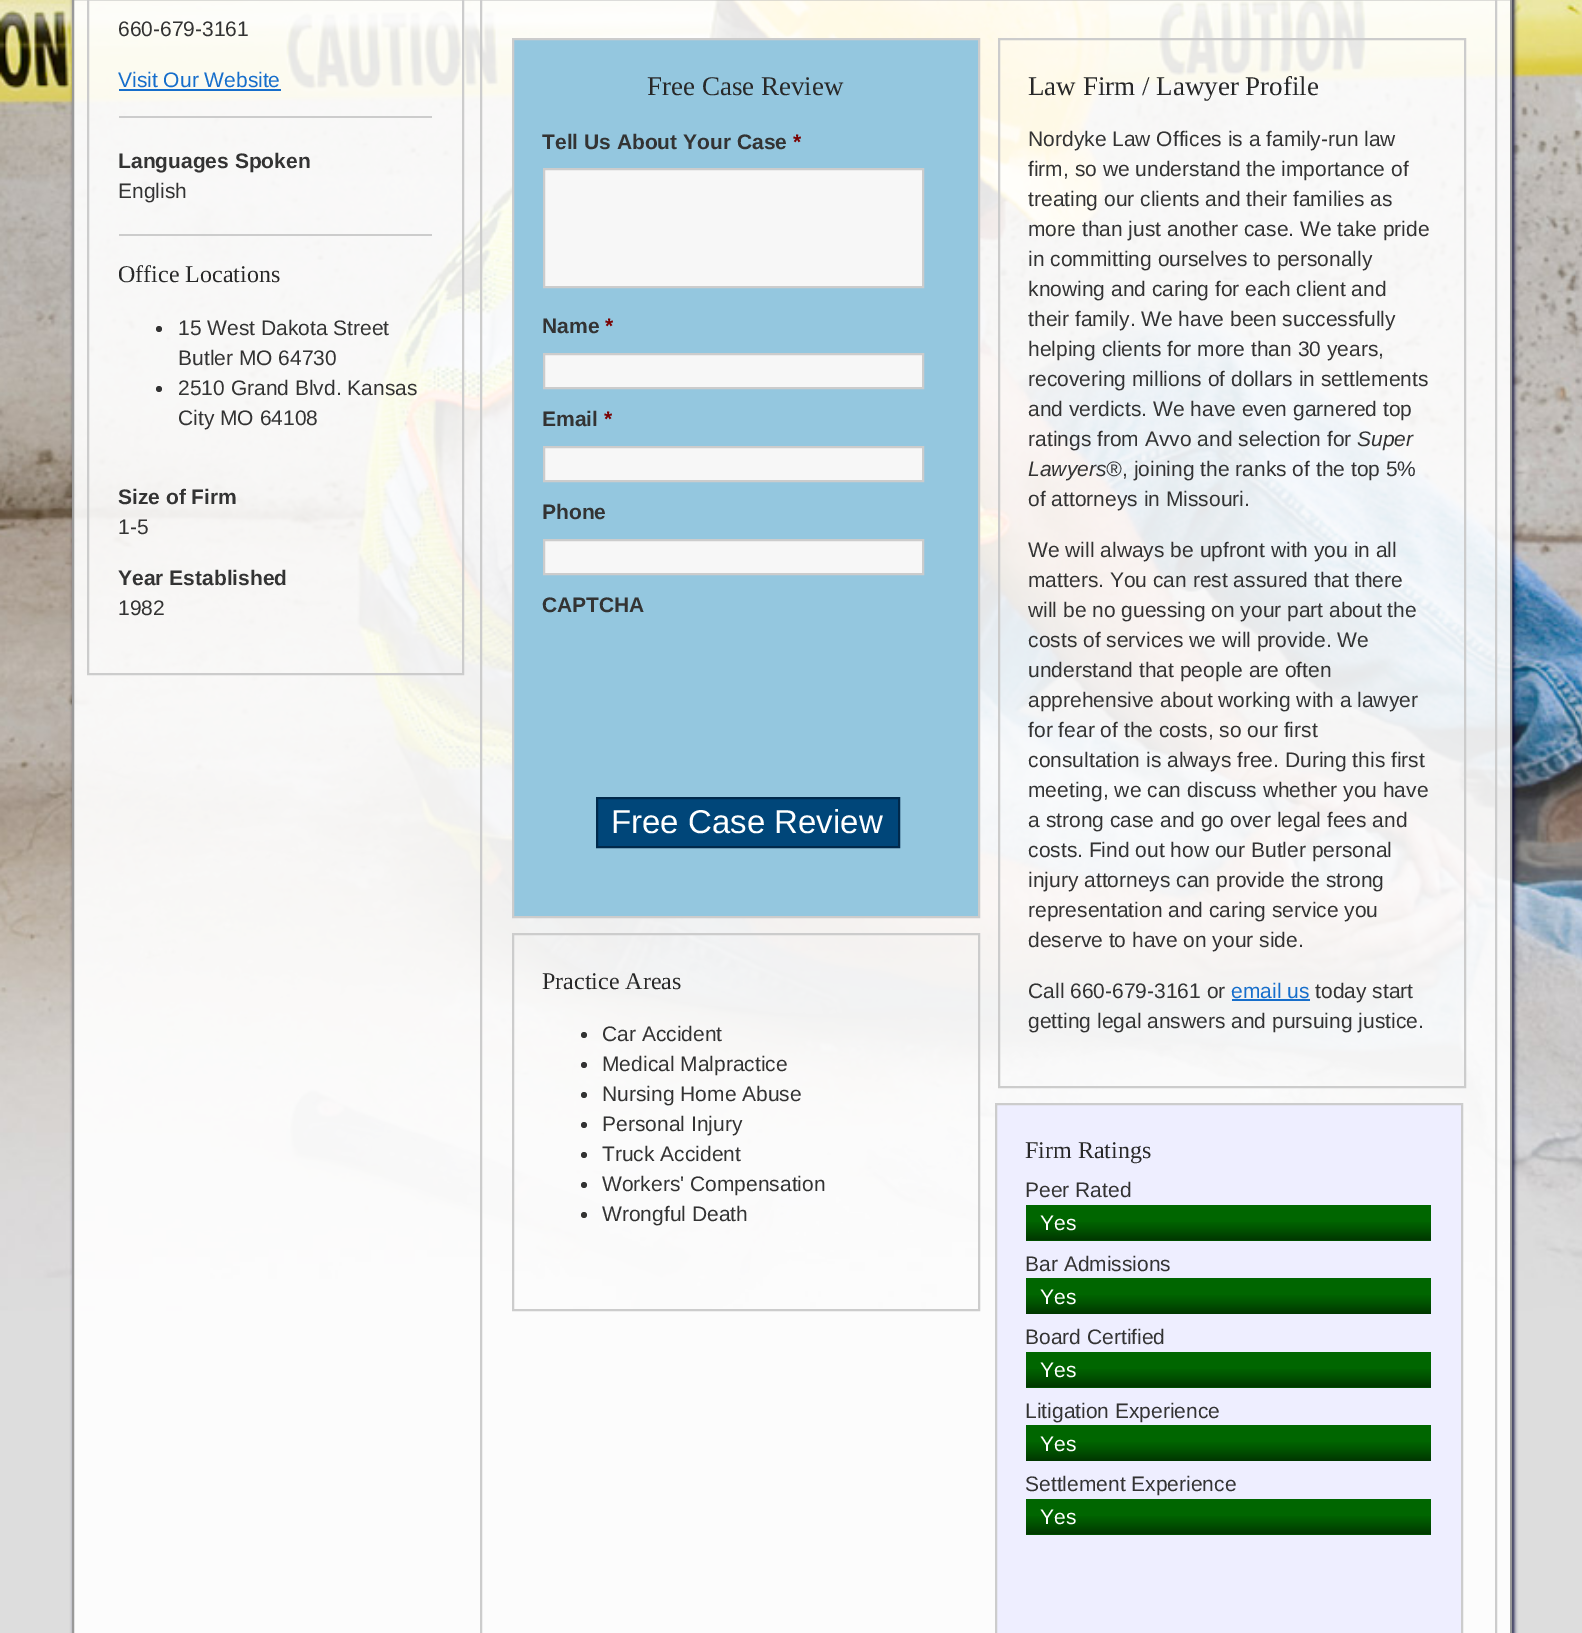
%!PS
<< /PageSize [1582 1633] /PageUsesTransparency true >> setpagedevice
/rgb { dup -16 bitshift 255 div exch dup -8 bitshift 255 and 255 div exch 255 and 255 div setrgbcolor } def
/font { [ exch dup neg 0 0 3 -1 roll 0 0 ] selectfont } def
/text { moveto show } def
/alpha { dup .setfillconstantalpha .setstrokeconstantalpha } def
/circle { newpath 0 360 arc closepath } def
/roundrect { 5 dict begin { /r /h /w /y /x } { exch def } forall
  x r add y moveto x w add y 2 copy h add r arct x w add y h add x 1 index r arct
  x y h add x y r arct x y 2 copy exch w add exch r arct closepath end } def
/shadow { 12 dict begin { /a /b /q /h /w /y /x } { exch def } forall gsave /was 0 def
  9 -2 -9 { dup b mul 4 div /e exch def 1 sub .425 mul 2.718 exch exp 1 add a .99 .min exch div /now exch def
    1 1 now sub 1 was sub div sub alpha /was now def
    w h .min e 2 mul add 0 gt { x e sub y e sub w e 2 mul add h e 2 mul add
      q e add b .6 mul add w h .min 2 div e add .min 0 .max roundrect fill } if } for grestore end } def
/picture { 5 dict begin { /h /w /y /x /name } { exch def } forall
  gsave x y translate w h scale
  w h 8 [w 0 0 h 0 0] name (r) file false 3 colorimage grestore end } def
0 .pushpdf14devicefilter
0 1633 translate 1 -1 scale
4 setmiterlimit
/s1 { /LiberationSans-Regular 21 font 16#333333 rgb } def
/s2 { /LiberationSans-Regular 21 font 16#166ECB rgb } def
/s3 { /LiberationSans-Bold 21 font 16#333333 rgb } def
/s4 { /LiberationSerif-Regular 24 font 16#282828 rgb } def
/s5 { /LiberationSerif-Regular 27 font 16#282828 rgb } def
/s6 { /LiberationSans-Bold 21 font 16#790000 rgb } def
/s7 { /LiberationSans-Regular 33 font 16#FFFFFF rgb } def
/s8 { /LiberationSans-Italic 21 font 16#333333 rgb } def
/s9 { /LiberationSans-Regular 21 font 16#FFFFFF rgb } def
16#DDDDDD rgb
0 0 1582 1633 rectfill
16#FCFCFC rgb
74 1311 1436 322 rectfill
(pic1.raw) 0 0 1582 1311 picture
gsave
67 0 moveto 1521 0 lineto 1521 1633 lineto 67 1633 lineto closepath 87 -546 moveto 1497 -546 lineto 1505.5 -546 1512 -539.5 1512 -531 curveto 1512 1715 lineto 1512 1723.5 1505.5 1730 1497 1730 curveto 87 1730 lineto 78.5 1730 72 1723.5 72 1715 curveto 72 -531 lineto 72 -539.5 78.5 -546 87 -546 curveto closepath eoclip newpath
16#000033 rgb
74 -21 1440 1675 15 2 1 shadow
grestore
16#999999 rgb
2 setlinewidth
73 -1 1438 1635 rectstroke
16#CCCCCC rgb
88 -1 375 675 rectstroke
s1
(660-679-3161) 118 36 text
s2
(Visit Our Website) 118 87 text
119 89 162 2 rectfill
16#CCCCCC rgb
119 116 313 2 rectfill
119 234 313 2 rectfill
s3
(Languages Spoken) 118 168 text
s1
(English) 118 198 text
s4
(Office Locations) 118 282 text
16#333333 rgb
159 329 3 circle fill
s1
(15 West Dakota Street) 178 335 text
(Butler MO 64730) 178 365 text
159 389 3 circle fill
(2510 Grand Blvd. Kansas) 178 395 text
(City MO 64108) 178 425 text
s3
(Size of Firm) 118 504 text
s1
(1-5) 118 534 text
s3
(Year Established) 118 585 text
s1
(1982) 118 615 text
16#CCCCCC rgb
481 -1 1015 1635 rectstroke
16#94C7DF rgb
513 39 moveto 979 39 lineto 979 917 lineto 513 917 lineto closepath gsave fill grestore
16#CCCCCC rgb
stroke
s5
(Free Case Review) 647 95 text
s3
(Tell Us About Your Case) 542 149 text
s6
(*) 793 149 text
16#F7F7F7 rgb
544 169 moveto 923 169 lineto 923 287 lineto 544 287 lineto closepath gsave fill grestore
16#CCCCCC rgb
stroke
s3
(Name) 542 333 text
s6
(*) 605 333 text
16#F7F7F7 rgb
544 354 moveto 923 354 lineto 923 388 lineto 544 388 lineto closepath gsave fill grestore
16#CCCCCC rgb
stroke
s3
(Email) 542 426 text
s6
(*) 604 426 text
16#F7F7F7 rgb
544 447 moveto 923 447 lineto 923 481 lineto 544 481 lineto closepath gsave fill grestore
16#CCCCCC rgb
stroke
s3
(Phone) 542 519 text
16#F7F7F7 rgb
544 540 moveto 923 540 lineto 923 574 lineto 544 574 lineto closepath gsave fill grestore
16#CCCCCC rgb
stroke
s3
(CAPTCHA) 542 612 text
16#004679 rgb
597 798 moveto 899 798 lineto 899 847 lineto 597 847 lineto closepath gsave fill grestore
16#00294B rgb
stroke
s7
(Free Case Review) 611 833 text
16#CCCCCC rgb
999 39 466 1048 rectstroke
s5
(Law Firm / Lawyer Profile) 1028 95 text
s1
(Nordyke Law Offices is a family-run law) 1028 146 text
(firm, so we understand the importance of) 1028 176 text
(treating our clients and their families as) 1028 206 text
(more than just another case. We take pride) 1028 236 text
(in committing ourselves to personally) 1028 266 text
(knowing and caring for each client and) 1028 296 text
(their family. We have been successfully) 1028 326 text
(helping clients for more than 30 years,) 1028 356 text
(recovering millions of dollars in settlements) 1028 386 text
(and verdicts. We have even garnered top) 1028 416 text
(ratings from Avvo and selection for) 1028 446 text
s8
(Super) 1357 446 text
(Lawyers®) 1028 476 text
s1
(, joining the ranks of the top 5%) 1122 476 text
(of attorneys in Missouri.) 1028 506 text
(We will always be upfront with you in all) 1028 557 text
(matters. You can rest assured that there) 1028 587 text
(will be no guessing on your part about the) 1028 617 text
(costs of services we will provide. We) 1028 647 text
(understand that people are often) 1028 677 text
(apprehensive about working with a lawyer) 1028 707 text
(for fear of the costs, so our first) 1028 737 text
(consultation is always free. During this first) 1028 767 text
(meeting, we can discuss whether you have) 1028 797 text
(a strong case and go over legal fees and) 1028 827 text
(costs. Find out how our Butler personal) 1028 857 text
(injury attorneys can provide the strong) 1028 887 text
(representation and caring service you) 1028 917 text
(deserve to have on your side.) 1028 947 text
(Call 660-679-3161 or) 1028 998 text
s2
(email us) 1231 998 text
1232 999 78 2 rectfill
s1
(today start) 1315 998 text
(getting legal answers and pursuing justice.) 1028 1028 text
16#CCCCCC rgb
513 934 466 376 rectstroke
s4
(Practice Areas) 542 989 text
16#333333 rgb
584 1035 3 circle fill
s1
(Car Accident) 602 1041 text
584 1065 3 circle fill
(Medical Malpractice) 602 1071 text
584 1095 3 circle fill
(Nursing Home Abuse) 602 1101 text
584 1125 3 circle fill
(Personal Injury) 602 1131 text
584 1155 3 circle fill
(Truck Accident) 602 1161 text
584 1185 3 circle fill
(Workers' Compensation) 602 1191 text
584 1215 3 circle fill
(Wrongful Death) 602 1221 text
16#EEEEFF rgb
996 1104 moveto 1462 1104 lineto 1462 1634 lineto 996 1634 lineto closepath gsave fill grestore
16#CCCCCC rgb
stroke
s4
(Firm Ratings) 1025 1158 text
s1
(Peer Rated) 1025 1197 text
16#006600 rgb
1026 1205 405 36 rectfill
(pic2.raw) 1026 1222 405 19 picture
s9
(Yes) 1040 1230 text
s1
(Bar Admissions) 1025 1271 text
16#006600 rgb
1026 1278 405 36 rectfill
(pic3.raw) 1026 1295 405 19 picture
s9
(Yes) 1040 1304 text
s1
(Board Certified) 1025 1344 text
16#006600 rgb
1026 1352 405 36 rectfill
(pic2.raw) 1026 1369 405 19 picture
s9
(Yes) 1040 1377 text
s1
(Litigation Experience) 1025 1418 text
16#006600 rgb
1026 1425 405 36 rectfill
(pic4.raw) 1026 1442 405 19 picture
s9
(Yes) 1040 1451 text
s1
(Settlement Experience) 1025 1491 text
16#006600 rgb
1026 1499 405 36 rectfill
(pic2.raw) 1026 1516 405 19 picture
s9
(Yes) 1040 1524 text
.poppdf14devicefilter showpage
